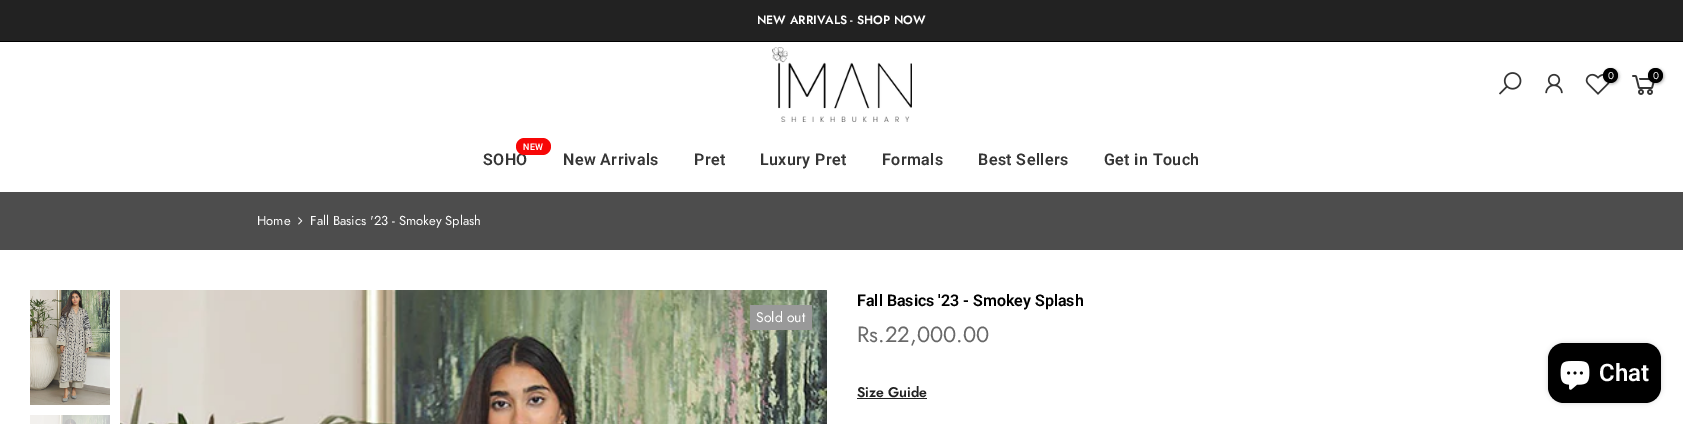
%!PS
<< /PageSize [1683 424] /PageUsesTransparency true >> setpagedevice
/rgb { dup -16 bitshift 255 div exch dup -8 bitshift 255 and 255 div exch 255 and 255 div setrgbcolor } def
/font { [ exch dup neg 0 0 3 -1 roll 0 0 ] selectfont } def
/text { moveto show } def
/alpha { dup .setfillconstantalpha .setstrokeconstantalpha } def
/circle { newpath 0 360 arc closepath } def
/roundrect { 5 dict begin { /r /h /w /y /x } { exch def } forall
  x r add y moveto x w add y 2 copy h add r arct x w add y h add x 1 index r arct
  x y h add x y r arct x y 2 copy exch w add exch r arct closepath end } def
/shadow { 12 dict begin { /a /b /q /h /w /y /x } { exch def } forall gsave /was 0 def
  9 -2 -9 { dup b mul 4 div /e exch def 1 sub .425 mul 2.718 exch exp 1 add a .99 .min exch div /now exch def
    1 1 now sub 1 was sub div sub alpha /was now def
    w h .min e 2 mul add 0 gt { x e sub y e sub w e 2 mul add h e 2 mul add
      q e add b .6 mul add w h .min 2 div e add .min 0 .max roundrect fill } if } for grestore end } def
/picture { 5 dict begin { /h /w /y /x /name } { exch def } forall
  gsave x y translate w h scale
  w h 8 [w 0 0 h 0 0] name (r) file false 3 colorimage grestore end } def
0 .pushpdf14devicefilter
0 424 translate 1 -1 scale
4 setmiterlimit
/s1 { /Jost-SemiBold 12 font 16#FFFFFF rgb } def
/s2 { /Jost-Regular 10 font 16#FFFFFF rgb } def
/s3 { /Jost-Regular 13 font 16#FFFFFF rgb } def
/s4 { /Jost-Regular 14 font 16#FFFFFF rgb } def
/s5 { /Roboto-SemiBold 16 font 16#000000 rgb } def
/s6 { /Jost-Regular 22 font 16#696969 rgb } def
/s7 { /Jost-SemiBold 14 font 16#222222 rgb } def
/s8 { /Roboto-SemiBold 24 font 16#FFFFFF rgb } def
16#FFFFFF rgb
0 0 1683 424 rectfill
16#222222 rgb
0 0 1683 41 rectfill
16#000000 rgb
0 41 1683 1 rectfill
s1
(NEW ARRIVALS - SHOP NOW) 757 24 text
(pic1.raw) 772 47 140 75 picture
(pic2.raw) 1499 72 23 23 picture
(pic3.raw) 1545 73 18 21 picture
(pic4.raw) 1585 73 25 22 picture
16#000000 rgb
1604 69 15 15 7.5 1.5 0.3 shadow
1610.5 75.5 7.5 circle fill
s2
(0) 1608 79 text
(pic5.raw) 1632 75 23 20 picture
16#000000 rgb
1649 69 15 15 7.5 1.5 0.3 shadow
1655.5 75.5 7.5 circle fill
s2
(0) 1653 79 text
/Roboto-SemiBold 16 font
16#353535 rgb
483 165 moveto 0.4 0 (SOHO) ashow
16#F70707 rgb
516 138 35 17 8.5 roundrect fill
/Roboto-SemiBold 9 font
16#FFFFFF rgb
523 150 moveto 0.4 0 (NEW) ashow
/Roboto-SemiBold 16 font
16#353535 rgb
563 165 moveto 0.4 0 (New Arrivals) ashow
694 165 moveto 0.4 0 (Pret) ashow
760 165 moveto 0.4 0 (Luxury Pret) ashow
882 165 moveto 0.4 0 (Formals) ashow
978 165 moveto 0.4 0 (Best Sellers) ashow
1104 165 moveto 0.4 0 (Get in Touch) ashow
16#4D4D4D rgb
0 192 1683 58 rectfill
s3
(Home) 257 225 text
(pic6.raw) 298 217 5 8 picture
(Fall Basics '23 - Smokey Splash) 310 225 text
(pic7.raw) 30 290 80 115 picture
(pic8.raw) 30 415 80 9 picture
(pic9.raw) 120 290 707 134 picture
16#999999 rgb
750 305 62 25 rectfill
s4
(Sold out) 756 322 text
s5
(Fall Basics '23 - Smokey Splash) 857 306 text
s6
(Rs.22,000.00) 857 342 text
s7
(Size Guide) 857 397 text
857 398 70 1 rectfill
16#000000 rgb
1548 343 113 60 16 2.5 0.15 shadow
1548 343 113 60 16 roundrect fill
(pic10.raw) 1560 361 30 29 picture
s8
(Chat) 1599 381 text
.poppdf14devicefilter showpage
